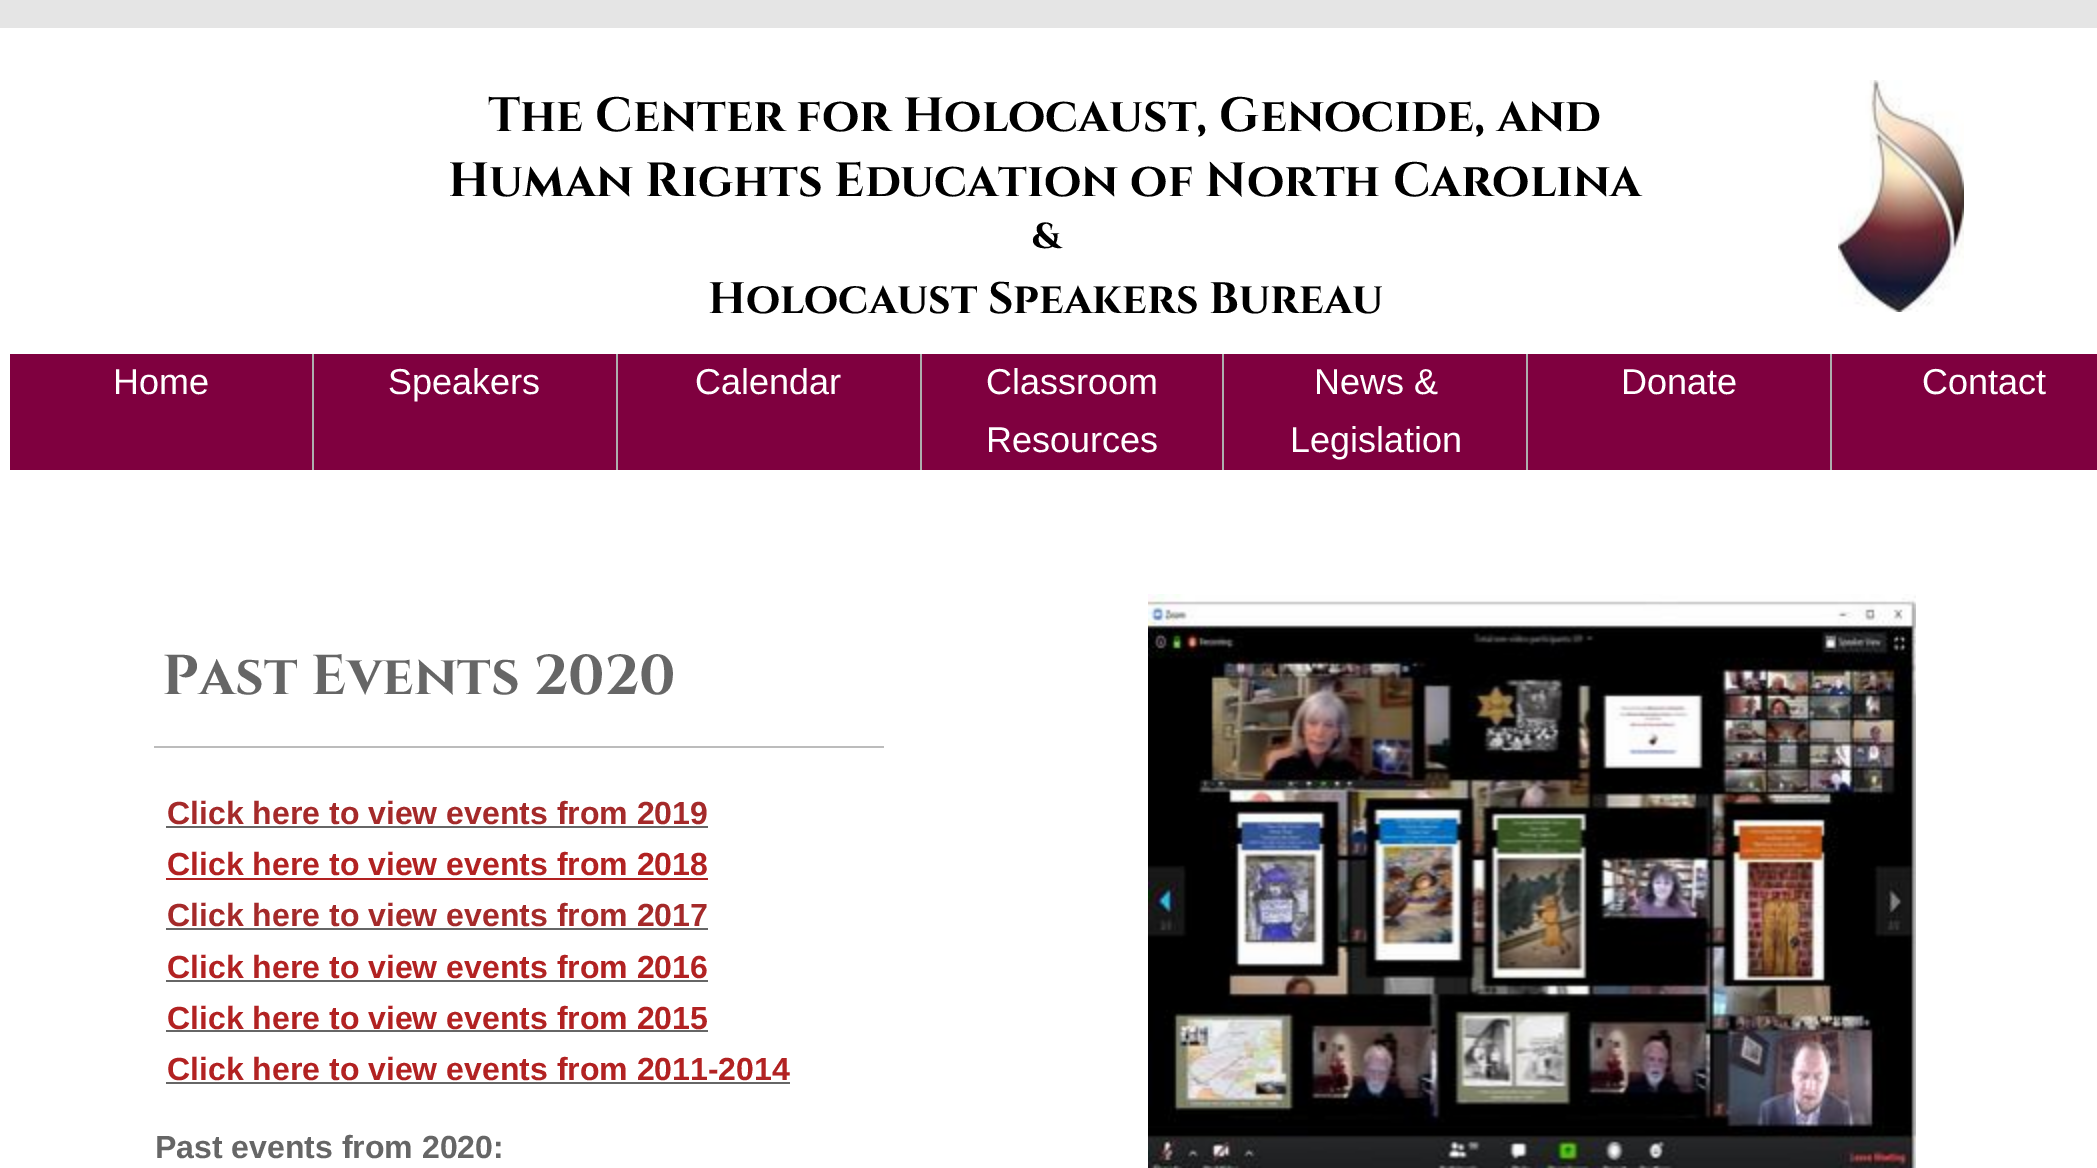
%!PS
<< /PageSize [2097 1168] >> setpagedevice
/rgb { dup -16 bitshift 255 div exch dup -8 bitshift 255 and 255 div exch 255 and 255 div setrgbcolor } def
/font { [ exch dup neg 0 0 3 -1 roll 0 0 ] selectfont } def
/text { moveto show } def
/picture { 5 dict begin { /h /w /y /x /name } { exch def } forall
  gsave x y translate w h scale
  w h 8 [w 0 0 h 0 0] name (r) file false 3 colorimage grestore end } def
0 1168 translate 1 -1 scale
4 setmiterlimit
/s1 { /Cinzel-Bold 48 font 16#000000 rgb } def
/s2 { /Cinzel-Bold 36 font 16#000000 rgb } def
/s3 { /Cinzel-Bold 44 font 16#000000 rgb } def
/s4 { /LiberationSans-Regular 36 font 16#FFFFFF rgb } def
/s5 { /Cinzel-Bold 56 font 16#666666 rgb } def
/s6 { /LiberationSans-Bold 32 font 16#A52A2A rgb } def
/s7 { /LiberationSans-Bold 32 font 16#B22222 rgb } def
/s8 { /LiberationSans-Bold 32 font 16#666666 rgb } def
16#E5E5E5 rgb
0 0 2097 1168 rectfill
16#FFFFFF rgb
0 28 2097 1140 rectfill
s1
(The Center for Holocaust, Genocide, and) 488 131 text
(Human Rights Education of North Carolina) 448 196 text
s2
(&) 1032 248 text
s3
(Holocaust Speakers Bureau) 708 313 text
(pic1.raw) 1838 80 126 232 picture
16#7F003F rgb
10 354 302 116 rectfill
16#AEAEAE rgb
312 354 2 116 rectfill
s4
(Home) 113 394 text
16#7F003F rgb
314 354 302 116 rectfill
16#AEAEAE rgb
616 354 2 116 rectfill
s4
(Speakers) 388 394 text
16#7F003F rgb
618 354 302 116 rectfill
16#AEAEAE rgb
920 354 2 116 rectfill
s4
(Calendar) 695 394 text
16#7F003F rgb
922 354 300 116 rectfill
16#AEAEAE rgb
1222 354 2 116 rectfill
s4
(Classroom) 986 394 text
(Resources) 986 452 text
16#7F003F rgb
1224 354 302 116 rectfill
16#AEAEAE rgb
1526 354 2 116 rectfill
s4
(News &) 1314 394 text
(Legislation) 1290 452 text
16#7F003F rgb
1528 354 302 116 rectfill
16#AEAEAE rgb
1830 354 2 116 rectfill
s4
(Donate) 1621 394 text
16#7F003F rgb
1832 354 265 116 rectfill
s4
(Contact) 1922 394 text
s5
(Past Events 2020) 162 694 text
(pic2.raw) 1148 594 768 574 picture
16#BCBCBC rgb
154 746 730 2 rectfill
s6
(Click here to view events from 2019) 167 824 text
16#666666 rgb
166 826 542 2 rectfill
s7
(Click here to view events from 2018) 167 875 text
166 878 542 2 rectfill
s6
(Click here to view events from 2017) 167 926 text
16#666666 rgb
166 928 542 2 rectfill
s7
(Click here to view events from 2016) 167 978 text
16#666666 rgb
166 980 542 2 rectfill
s7
(Click here to view events from 2015) 167 1029 text
16#666666 rgb
166 1030 542 2 rectfill
s7
(Click here to view events from 2011-2014) 167 1080 text
16#666666 rgb
166 1082 624 2 rectfill
(Past events from 2020:) 155 1158 text
showpage
